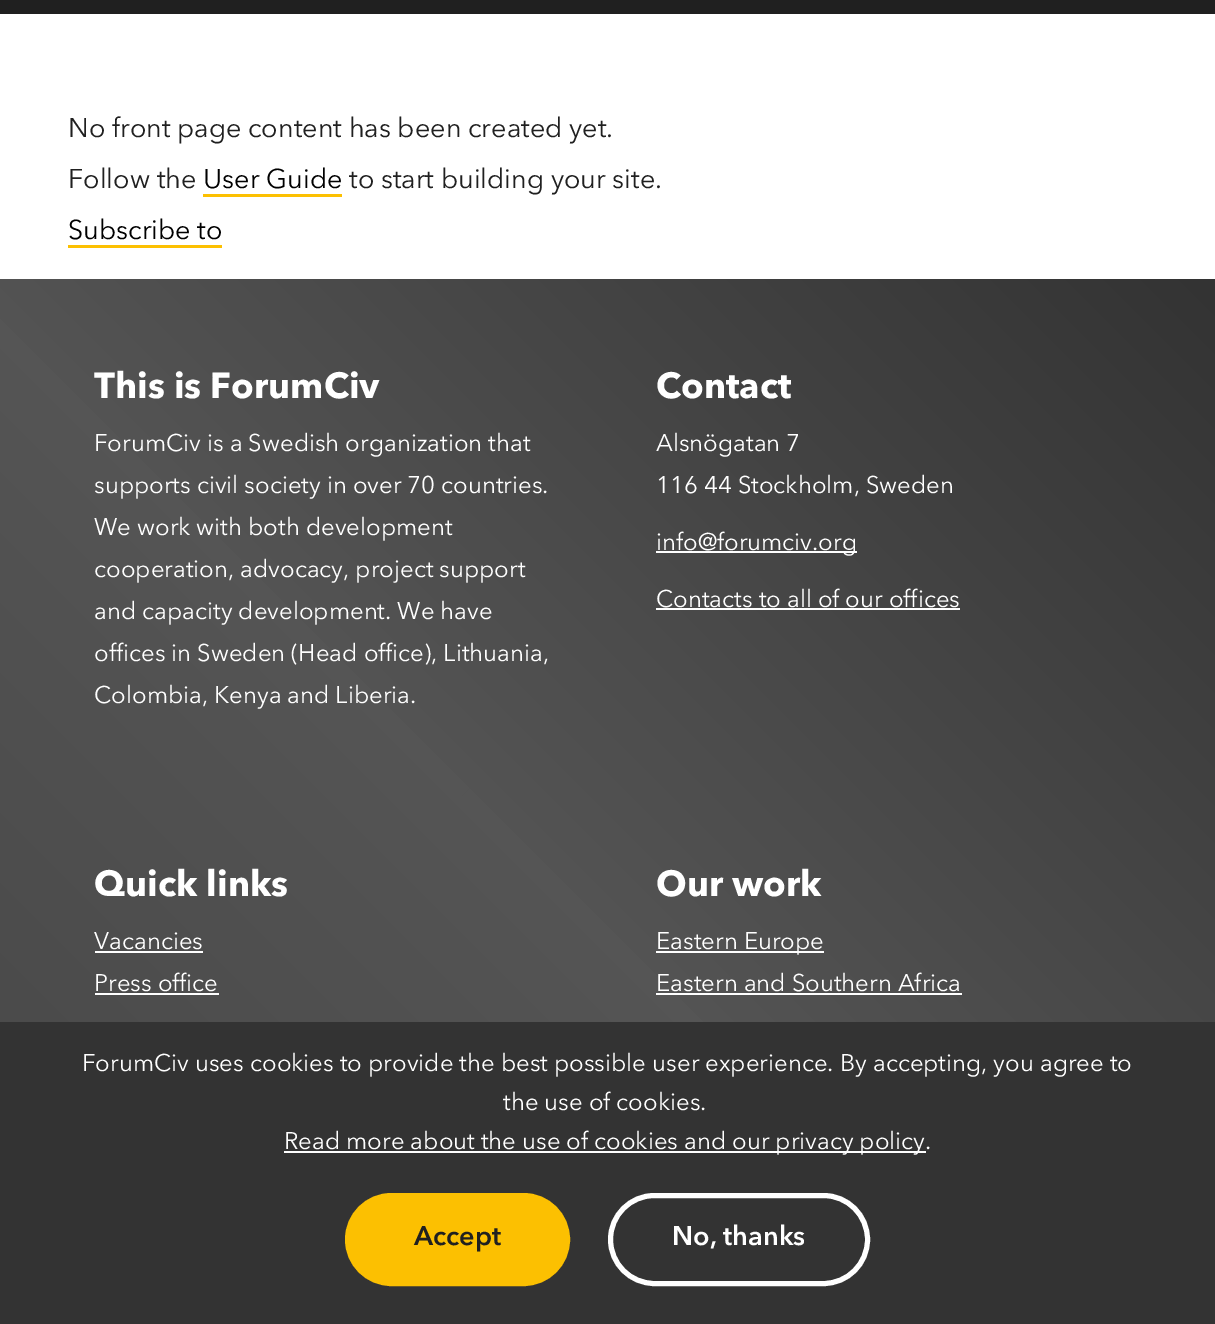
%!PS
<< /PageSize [1215 1324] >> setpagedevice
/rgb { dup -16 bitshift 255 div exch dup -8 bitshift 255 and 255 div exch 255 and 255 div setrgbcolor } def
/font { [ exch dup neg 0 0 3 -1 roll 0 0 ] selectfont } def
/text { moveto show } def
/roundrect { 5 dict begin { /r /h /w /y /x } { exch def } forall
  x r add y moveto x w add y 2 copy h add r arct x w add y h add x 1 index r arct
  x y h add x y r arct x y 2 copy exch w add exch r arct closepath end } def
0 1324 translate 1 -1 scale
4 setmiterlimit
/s1 { /AvenirNext-Regular 27 font 16#202020 rgb } def
/s2 { /AvenirNext-Regular 27 font 16#000000 rgb } def
/s3 { /AvenirNext-Bold 36 font 16#FFFFFF rgb } def
/s4 { /AvenirNext-Regular 24 font 16#FFFFFF rgb } def
/s5 { /AvenirNext-SemiBold 27 font 16#202020 rgb } def
/s6 { /AvenirNext-SemiBold 27 font 16#FFFFFF rgb } def
16#FFFFFF rgb
0 0 1215 1324 rectfill
16#202020 rgb
0 0 1215 14 rectfill
s1
(No front page content has been created yet.) 68 137 text
(Follow the) 68 188 text
s2
(User Guide) 203 188 text
16#FCC001 rgb
203 194 139 3 rectfill
s1
(to start building your site.) 349 188 text
s2
(Subscribe to) 68 239 text
16#FCC001 rgb
68 245 154 3 rectfill
gsave 0 279 moveto 1215 279 lineto 1215 1022 lineto 0 1022 lineto closepath clip newpath
<< /ShadingType 2 /ColorSpace /DeviceRGB /Coords [4.9 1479 1210 274] /Extend [true true] /Function << /FunctionType 3 /Domain [0 1] /Functions [<< /FunctionType 2 /Domain [0 1] /C0 [0.267 0.267 0.267] /C1 [0.333 0.333 0.333] /N 1 >> << /FunctionType 2 /Domain [0 1] /C0 [0.333 0.333 0.333] /C1 [0.2 0.2 0.2] /N 1 >>] /Bounds [0.47] /Encode [0 1 0 1] >> >> shfill grestore
s3
(This is ForumCiv) 94 398 text
s4
(ForumCiv is a Swedish organization that) 94 451 text
(supports civil society in over 70 countries.) 94 493 text
(We work with both development) 94 535 text
(cooperation, advocacy, project support) 94 577 text
(and capacity development. We have) 94 619 text
(offices in Sweden \(Head office\), Lithuania,) 94 661 text
(Colombia, Kenya and Liberia.) 94 703 text
s3
(Contact) 656 398 text
s4
(Alsnögatan 7) 656 451 text
(116 44 Stockholm, Sweden) 656 493 text
656 551 201 2 rectfill
(info@forumciv.org) 656 550 text
(Contacts to all of our offices) 656 607 text
656 608 304 2 rectfill
s3
(Quick links) 94 896 text
s4
(Vacancies) 94 949 text
95 951 108 2 rectfill
(Press office) 94 991 text
95 993 124 2 rectfill
s3
(Our work) 656 896 text
656 951 168 2 rectfill
s4
(Eastern Europe) 656 949 text
(Eastern and Southern Africa) 656 991 text
656 993 306 2 rectfill
16#333333 rgb
0 1022 1215 302 rectfill
s4
(ForumCiv uses cookies to provide the best possible user experience. By accepting, you agree to) 82 1071 text
(the use of cookies.) 503 1110 text
284 1151 642 2 rectfill
(Read more about the use of cookies and our privacy policy.) 284 1149 text
16#FCC001 rgb
347.5 1195.5 220 88 44 roundrect gsave fill grestore
5 setlinewidth
stroke
s5
(Accept) 414 1245 text
16#FFFFFF rgb
610.5 1195.5 257 88 44 roundrect stroke
(No, thanks) 672 1245 text
showpage
